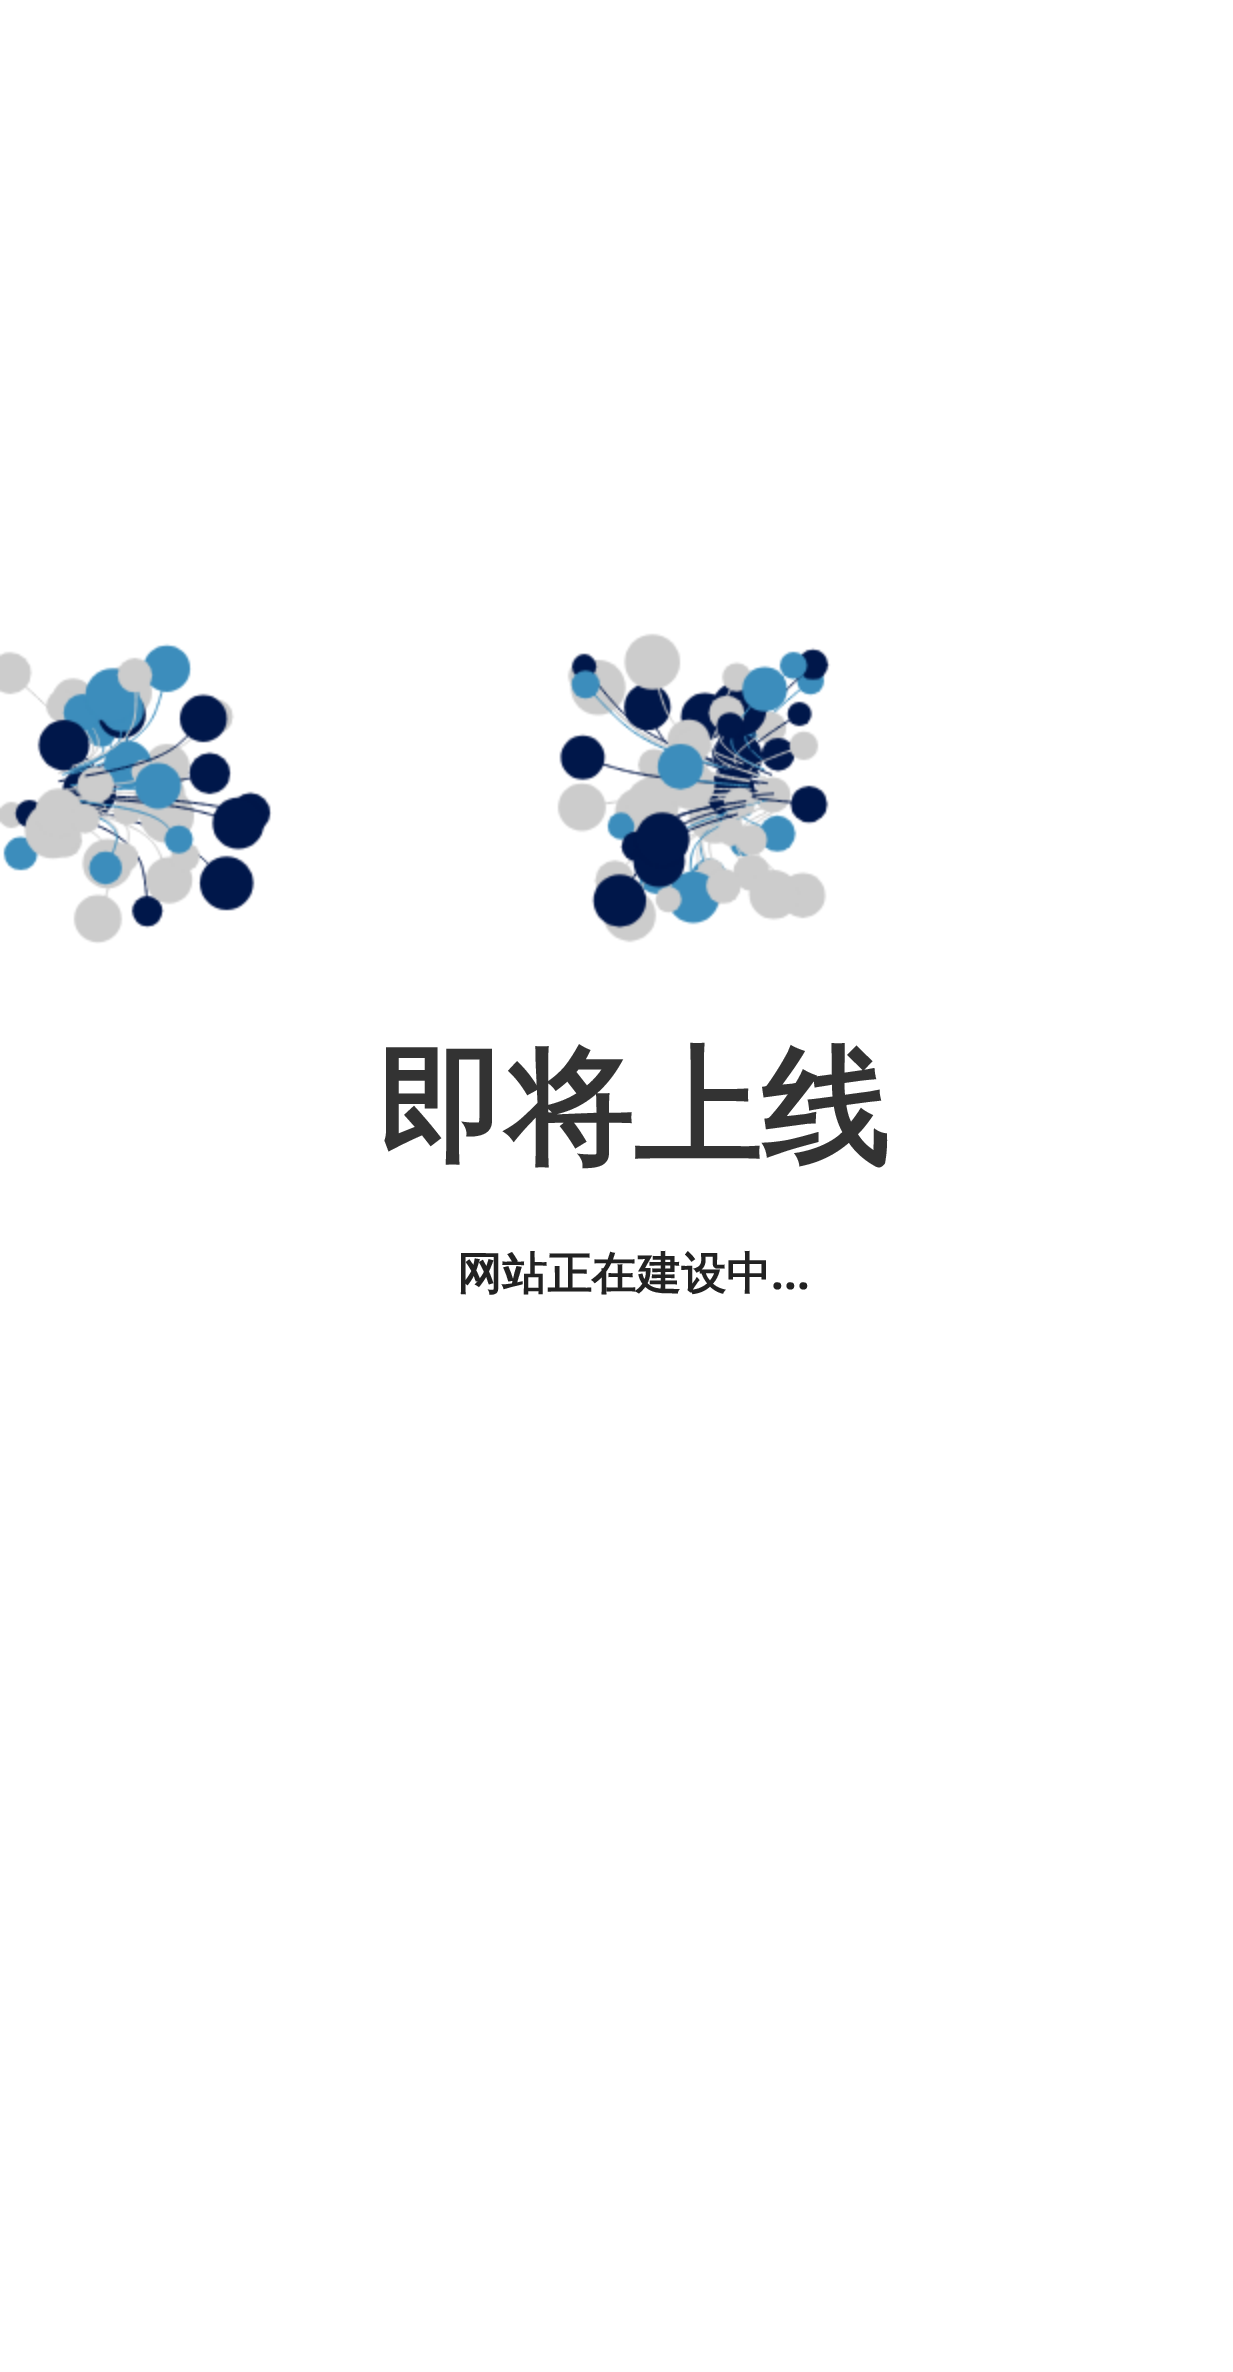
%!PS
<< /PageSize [1233 2372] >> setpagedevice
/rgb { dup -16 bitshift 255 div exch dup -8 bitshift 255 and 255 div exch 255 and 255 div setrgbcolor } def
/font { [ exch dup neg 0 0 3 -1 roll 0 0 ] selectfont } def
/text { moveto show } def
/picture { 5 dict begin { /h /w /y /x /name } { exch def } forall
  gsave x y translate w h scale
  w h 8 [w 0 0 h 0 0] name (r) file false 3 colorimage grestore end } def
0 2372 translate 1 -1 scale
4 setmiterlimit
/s1 { /WenQuanYiZenHei-Bold 128 font 16#333333 rgb } def
/s2 { /WenQuanYiZenHei-Bold 44.75 font 16#222222 rgb } def
/s3 { /OpenSans-Bold 44.75 font 16#222222 rgb } def
16#FFFFFF rgb
0 0 1233 2372 rectfill
(pic1.raw) 0 633 831 311 picture
s1
(即将上线) 377 1152 text
s2
(网站正在建设中) 457 1289 text
s3
(...) 771 1289 text
showpage
